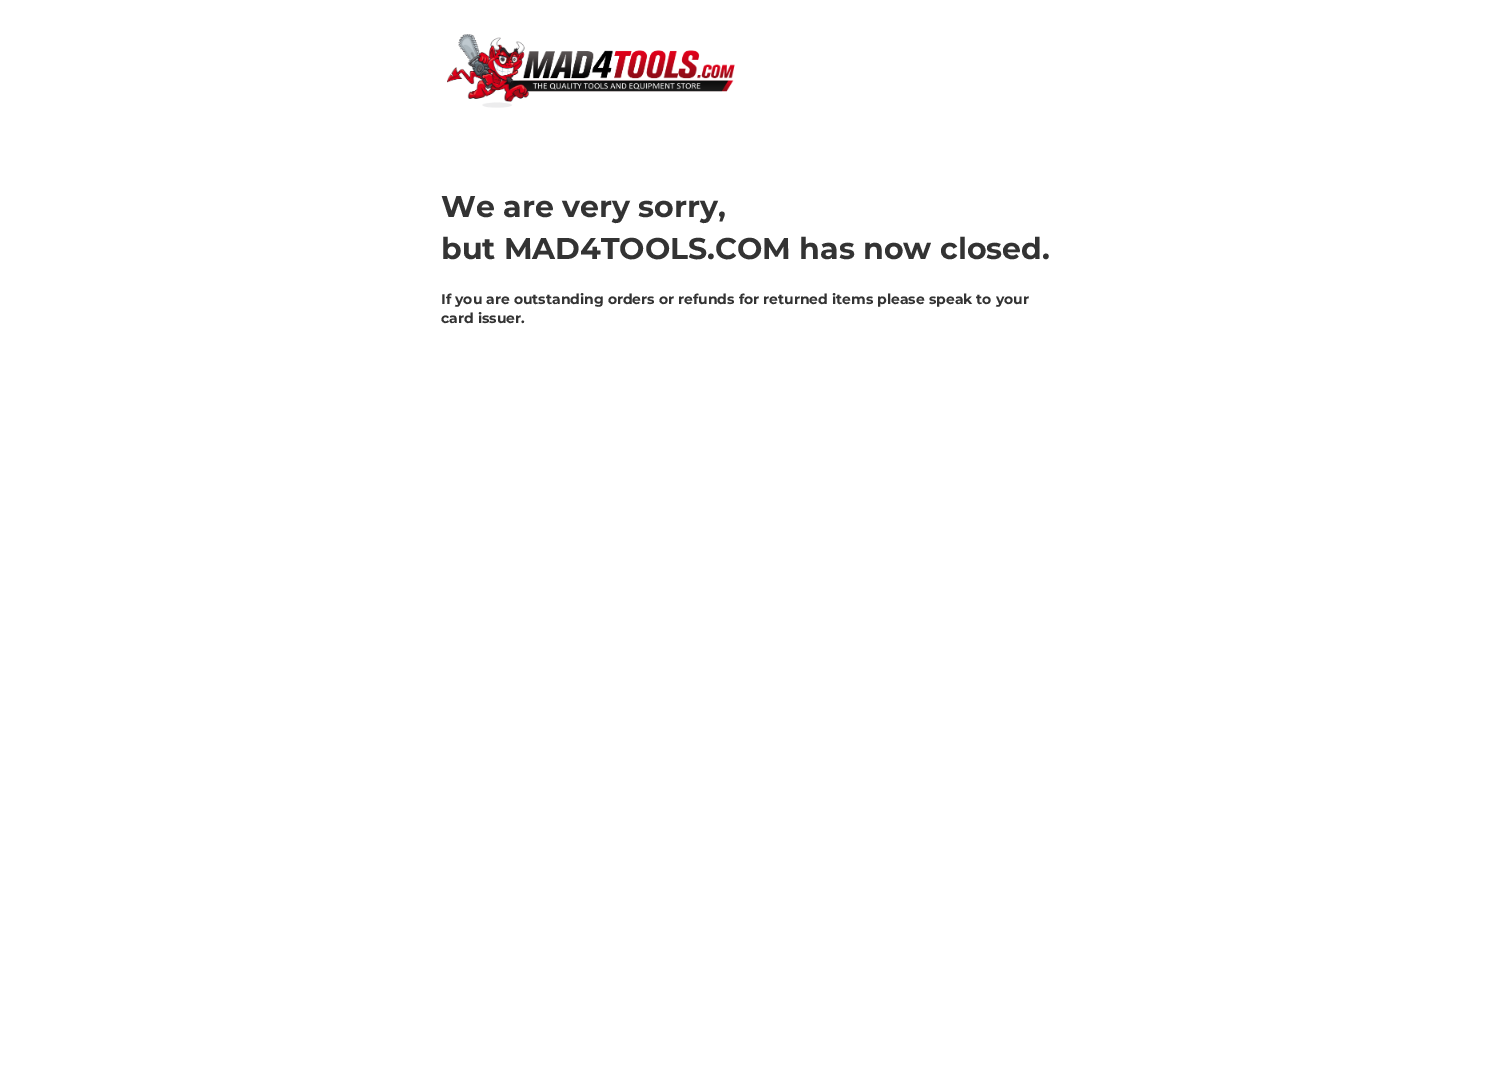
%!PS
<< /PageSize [1505 1082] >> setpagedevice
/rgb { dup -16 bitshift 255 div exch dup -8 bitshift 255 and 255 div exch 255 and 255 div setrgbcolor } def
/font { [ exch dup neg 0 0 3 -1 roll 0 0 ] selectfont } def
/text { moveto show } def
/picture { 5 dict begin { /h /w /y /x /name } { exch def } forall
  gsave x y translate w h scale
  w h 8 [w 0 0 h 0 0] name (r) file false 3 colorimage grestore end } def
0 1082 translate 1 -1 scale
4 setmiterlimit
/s1 { /Montserrat-Bold 30 font 16#333333 rgb } def
/s2 { /Montserrat-Bold 14 font 16#333333 rgb } def
16#FFFFFF rgb
0 0 1505 1082 rectfill
(pic1.raw) 447 34 288 74 picture
s1
(We are very sorry,) 441 217 text
(but MAD4TOOLS.COM has now closed.) 441 259 text
s2
(If you are outstanding orders or refunds for returned items please speak to your) 441 304 text
(card issuer.) 441 323 text
showpage
